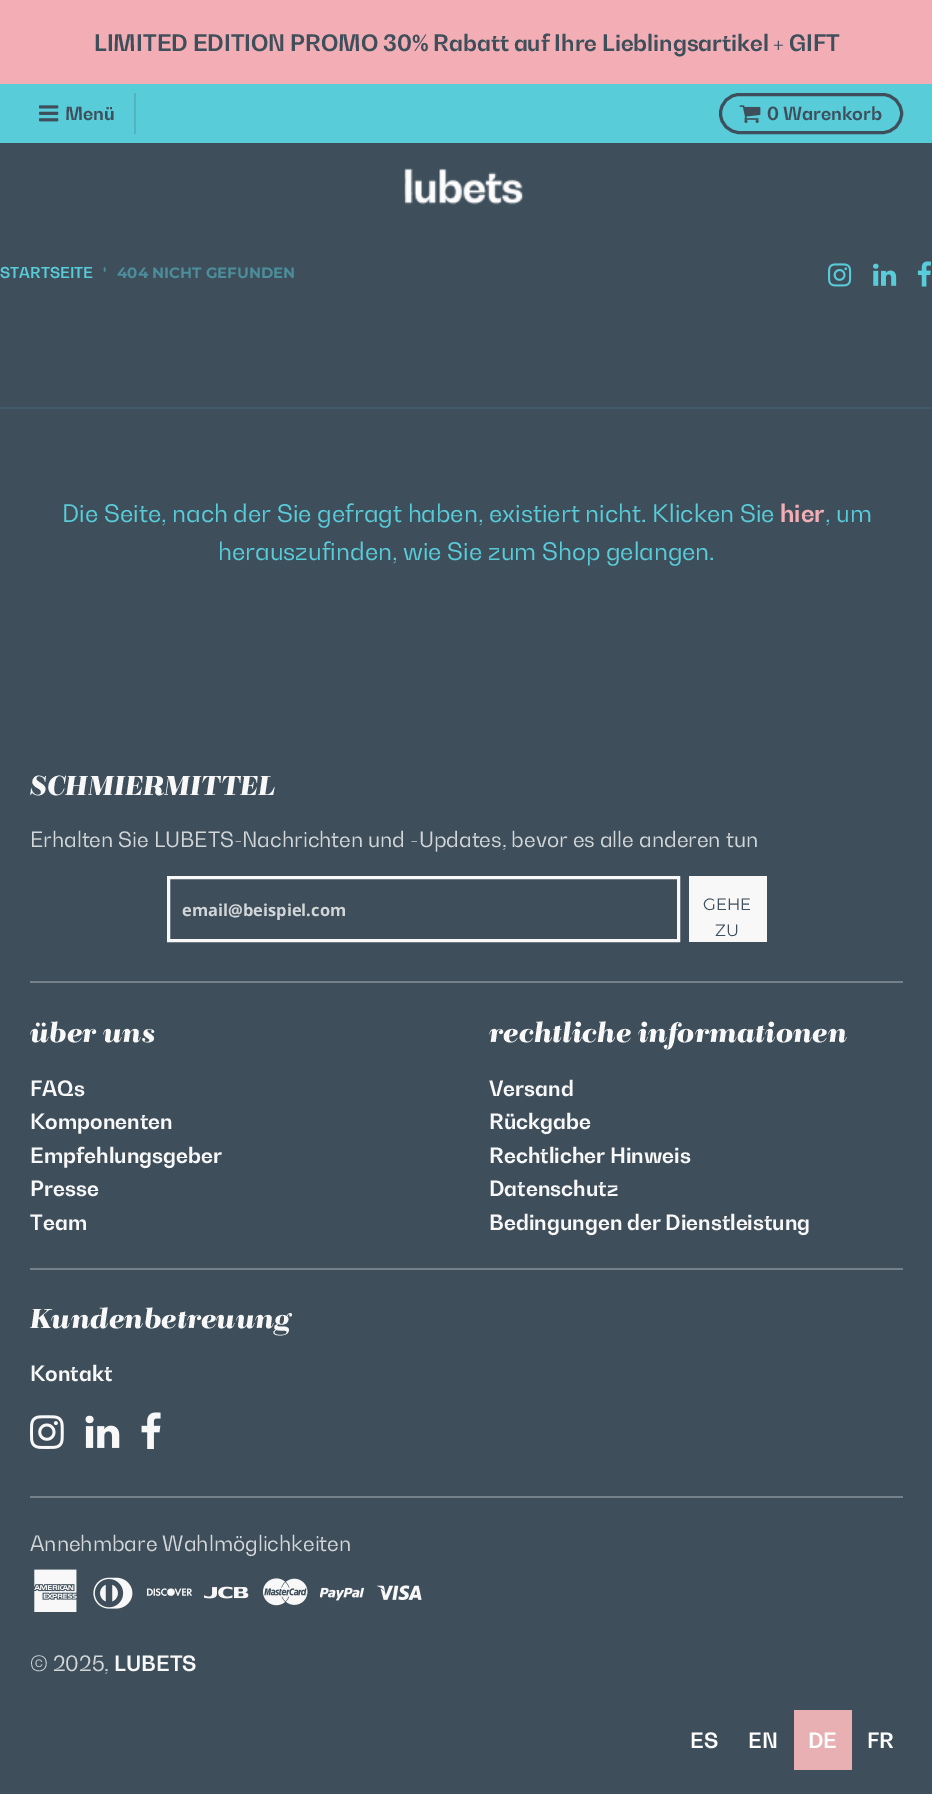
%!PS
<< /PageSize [932 1794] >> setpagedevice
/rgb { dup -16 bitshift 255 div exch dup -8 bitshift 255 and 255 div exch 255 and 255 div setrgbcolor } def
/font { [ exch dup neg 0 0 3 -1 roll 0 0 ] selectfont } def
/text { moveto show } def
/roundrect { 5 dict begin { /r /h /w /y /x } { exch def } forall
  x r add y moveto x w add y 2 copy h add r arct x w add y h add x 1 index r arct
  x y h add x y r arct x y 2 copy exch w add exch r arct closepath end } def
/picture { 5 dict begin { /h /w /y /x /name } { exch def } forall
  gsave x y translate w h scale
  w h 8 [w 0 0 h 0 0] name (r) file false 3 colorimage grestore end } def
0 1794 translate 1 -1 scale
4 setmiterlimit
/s1 { /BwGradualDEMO-Bold 22.5 font 16#3E4F5B rgb } def
/s2 { /BwGradualDEMO-Bold 18 font 16#3E4F5B rgb } def
/s3 { /BwGradualDEMO-Bold 15 font 16#59CCD9 rgb } def
/s4 { /Montserrat-Bold 15 font 16#4B8D9A rgb } def
/s5 { /BwGradualDEMO-Regular 24 font 16#59CCD9 rgb } def
/s6 { /BwGradualDEMO-Bold 24 font 16#F2AEB4 rgb } def
/s7 { /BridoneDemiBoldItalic-SemiBoldItalic 30 font 16#F8F8F8 rgb } def
/s8 { /BwGradualDEMO-Regular 21 font 16#D2D6D8 rgb } def
/s9 { /OpenSans-Bold 16.5 font 16#D2D6D8 rgb } def
/s10 { /Montserrat-Regular 16.5 font 16#3E4F5B rgb } def
/s11 { /BwGradualDEMO-Bold 21 font 16#F8F8F8 rgb } def
/s12 { /BwGradualDEMO-Bold 21 font 16#FFFFFF rgb } def
16#3E4F5B rgb
0 0 932 1794 rectfill
16#F2AEB4 rgb
0 0 932 84 rectfill
s1
(LIMITED EDITION PROMO 30% Rabatt auf Ihre Lieblingsartikel + GIFT) 94 51 text
16#59CCD9 rgb
0 84 932 59 rectfill
16#53B3BF rgb
134 93 2 41 rectfill
(pic1.raw) 39 105 20 17 picture
s2
(Menü) 65 120 text
3 setlinewidth
720.5 94.5 181 38 19 roundrect stroke
(pic2.raw) 739 105 22 18 picture
(0 Warenkorb) 767 120 text
(pic3.raw) 404 168 120 37 picture
s3
(STARTSEITE) 0 278 text
s4
(') 103 278 text
(404 NICHT GEFUNDEN) 117 278 text
(pic4.raw) 828 263 24 24 picture
(pic5.raw) 873 263 24 23 picture
(pic6.raw) 917 261 14 26 picture
16#405B67 rgb
0 407 932 2 rectfill
s5
(Die Seite, nach der Sie gefragt haben, existiert nicht. Klicken Sie) 62 522 text
s6
(hier) 780 522 text
s5
(, um) 825 522 text
(herauszufinden, wie Sie zum Shop gelangen.) 218 560 text
s7
(SCHMIERMITTEL) 30 795 text
s8
(Erhalten Sie LUBETS-Nachrichten und -Updates, bevor es alle anderen tun) 30 847 text
16#75818A rgb
30 981 873 2 rectfill
16#F8F8F8 rgb
168.5 877.5 510 63 rectstroke
s9
(email@beispiel.com) 182 916 text
16#F8F8F8 rgb
689 876 78 66 rectfill
s10
(GEHE) 703 910 text
(ZU) 715 936 text
s7
(über uns) 30 1042 text
s11
(FAQs) 30 1096 text
(Komponenten) 30 1129 text
(Empfehlungsgeber) 30 1163 text
(Presse) 30 1196 text
(Team) 30 1230 text
s7
(rechtliche informationen) 489 1042 text
s11
(Versand) 489 1096 text
(Rückgabe) 489 1129 text
(Rechtlicher Hinweis) 489 1163 text
(Datenschutz) 489 1196 text
(Bedingungen der Dienstleistung) 489 1230 text
16#75818A rgb
30 1268 873 2 rectfill
s7
(Kundenbetreuung) 30 1328 text
s11
(Kontakt) 30 1381 text
(pic7.raw) 30 1415 34 34 picture
(pic8.raw) 85 1415 35 33 picture
(pic9.raw) 141 1412 20 37 picture
16#75818A rgb
30 1496 873 2 rectfill
s8
(Annehmbare Wahlmöglichkeiten) 30 1551 text
(pic10.raw) 34 1569 43 43 picture
(pic11.raw) 93 1577 40 32 picture
(pic12.raw) 147 1588 45 8 picture
(pic13.raw) 204 1586 45 13 picture
(pic14.raw) 263 1578 45 28 picture
(pic15.raw) 320 1587 45 14 picture
(pic16.raw) 377 1585 45 15 picture
(© 2025,) 30 1671 text
s11
(LUBETS) 114 1671 text
s12
(ES) 690 1748 text
(EN) 748 1748 text
16#E8B0B3 rgb
794 1710 58 60 rectfill
s12
(DE) 808 1748 text
(FR) 867 1748 text
showpage
